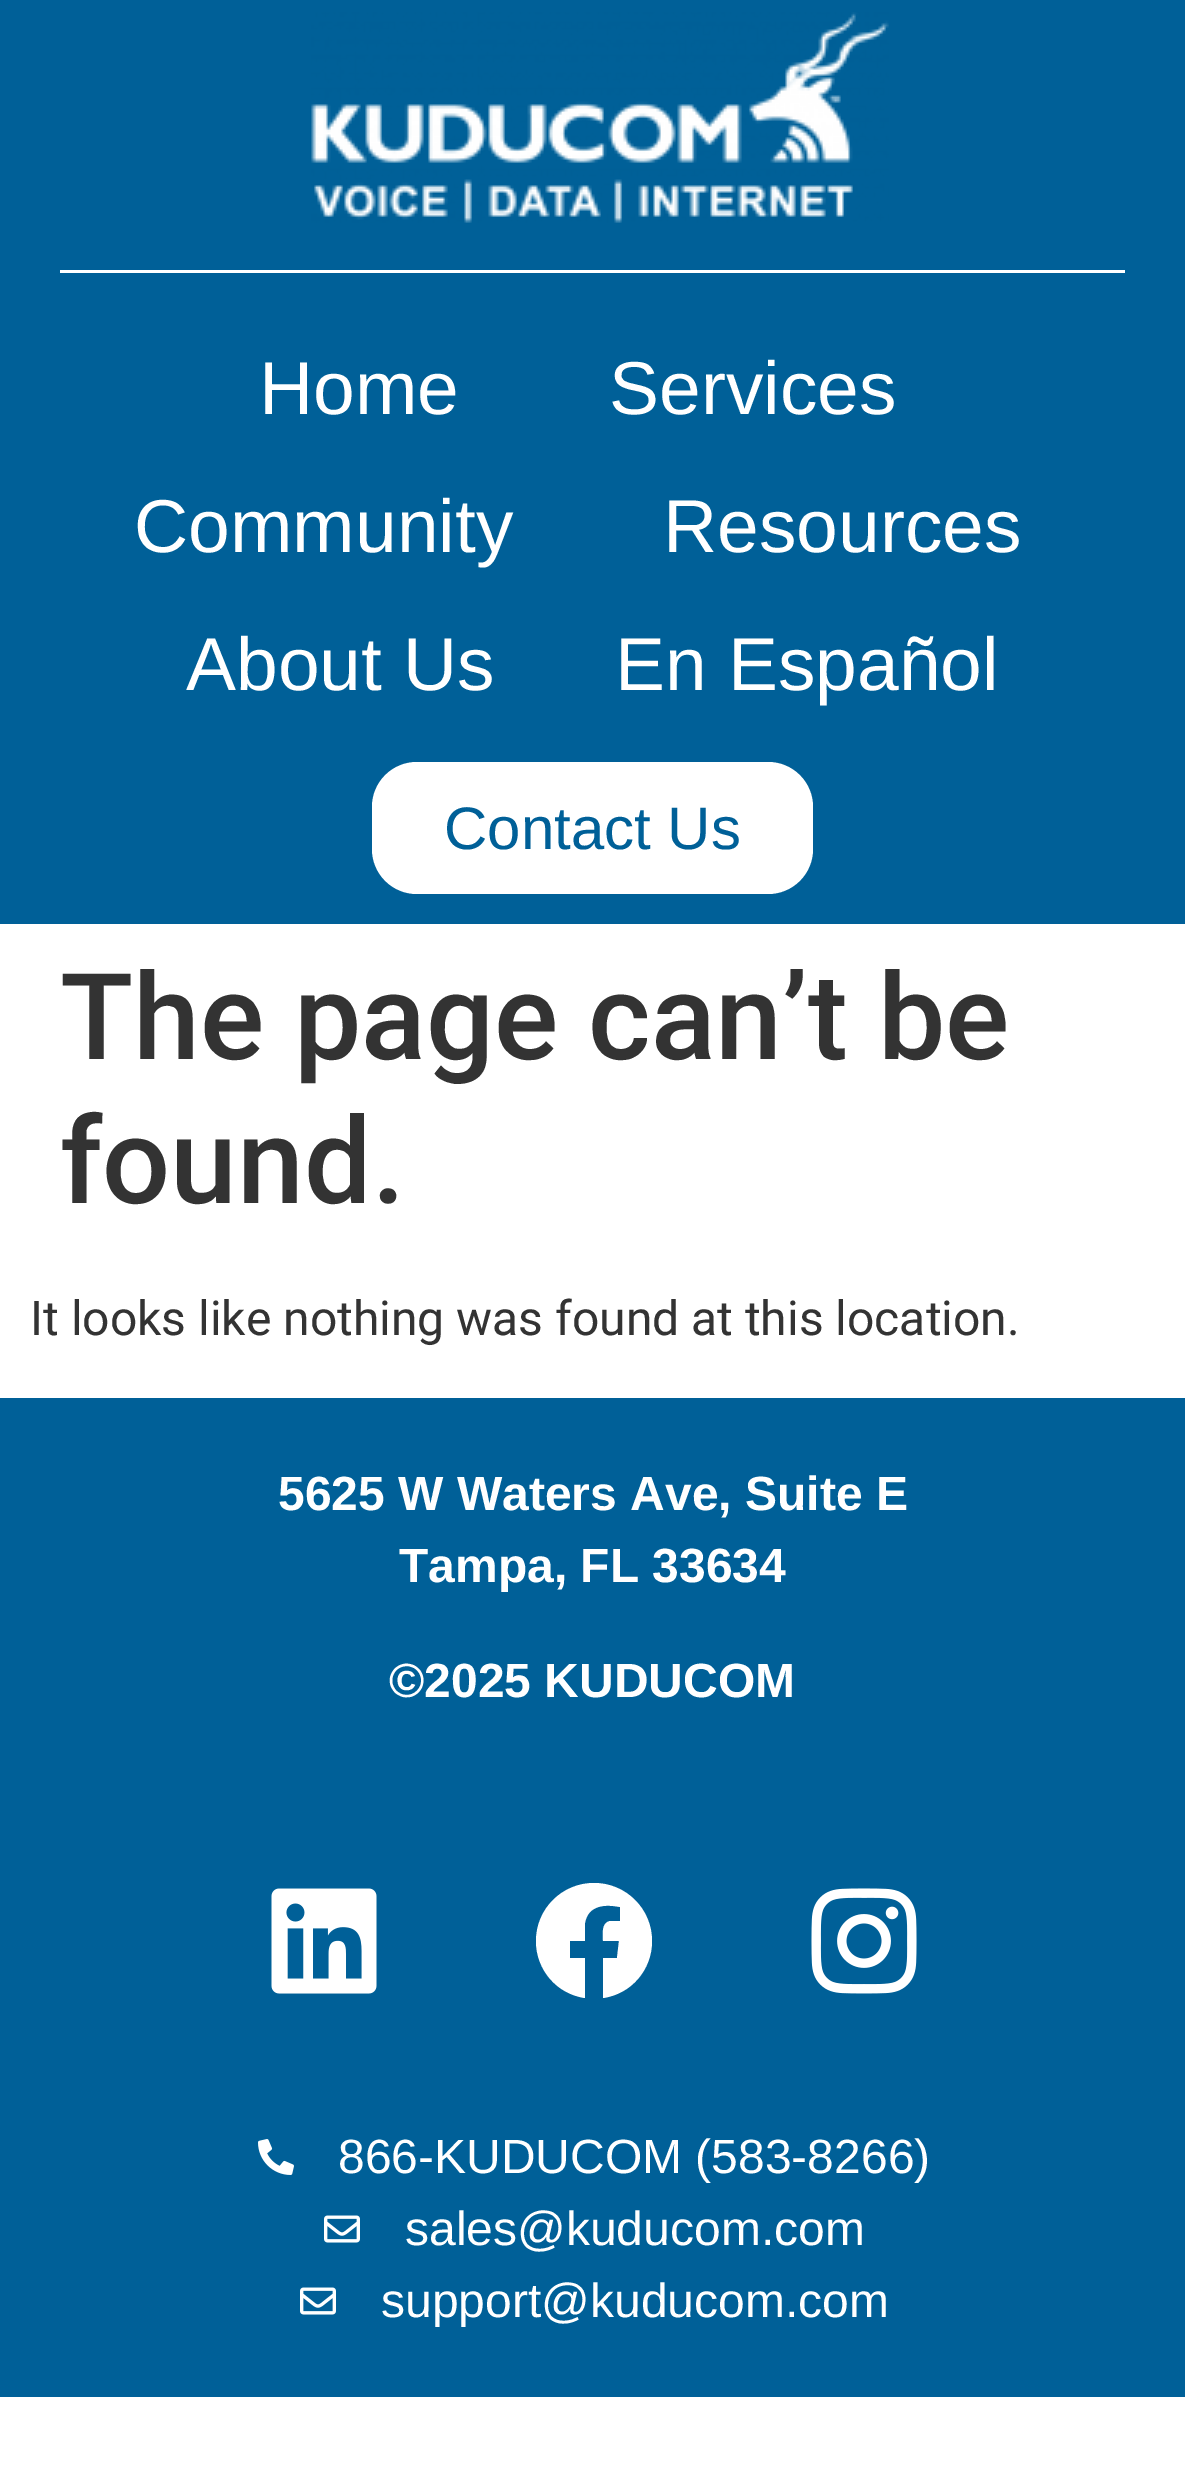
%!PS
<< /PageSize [1185 2475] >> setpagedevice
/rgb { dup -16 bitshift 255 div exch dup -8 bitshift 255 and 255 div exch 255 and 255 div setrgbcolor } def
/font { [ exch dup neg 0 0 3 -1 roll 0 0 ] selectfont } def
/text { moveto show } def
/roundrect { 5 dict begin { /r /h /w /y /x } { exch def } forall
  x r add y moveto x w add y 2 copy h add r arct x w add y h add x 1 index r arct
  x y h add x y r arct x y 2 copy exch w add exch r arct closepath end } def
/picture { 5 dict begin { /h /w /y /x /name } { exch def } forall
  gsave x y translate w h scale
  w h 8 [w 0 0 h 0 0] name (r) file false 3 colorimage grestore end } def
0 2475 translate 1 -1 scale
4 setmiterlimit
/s1 { /LiberationSans-Regular 75 font 16#FFFFFF rgb } def
/s2 { /LiberationSans-Regular 60 font 16#006098 rgb } def
/s3 { /Roboto-Medium 120 font 16#333333 rgb } def
/s4 { /Roboto-Regular 48 font 16#333333 rgb } def
/s5 { /LiberationSans-Bold 48 font 16#FFFFFF rgb } def
/s6 { /LiberationSans-Regular 48 font 16#FFFFFF rgb } def
16#FFFFFF rgb
0 0 1185 2475 rectfill
16#006098 rgb
0 0 1185 924 rectfill
(pic1.raw) 311 12 578 211 picture
16#FFFFFF rgb
60 270 1065 3 rectfill
s1
(Home) 259 414 text
(Services) 609 414 text
(Community) 134 552 text
(Resources) 663 552 text
(About Us) 186 690 text
(En Español) 615 690 text
372 762 441 132 45 roundrect fill
s2
(Contact Us) 444 849 text
s3
(The page can’t be) 60 1059 text
(found.) 60 1203 text
s4
(It looks like nothing was found at this location.) 30 1335 text
16#006098 rgb
0 1398 1185 999 rectfill
s5
(5625 W Waters Ave, Suite E) 278 1510 text
(Tampa, FL 33634) 399 1582 text
(©2025 KUDUCOM) 389 1697 text
(pic2.raw) 271 1888 106 106 picture
652 1941 moveto 652 1909 626 1883 594 1883 curveto 562 1883 536 1909 536 1941 curveto 536 1970 557 1994 585 1998 curveto 585 1958 lineto 570 1958 lineto 570 1941 lineto 585 1941 lineto 585 1923 lineto 588 1905 605 1904 620 1907 curveto 620 1921 lineto 610 1921 lineto 601 1923 603 1934 603 1941 curveto 619 1941 lineto 617 1958 lineto 603 1958 lineto 603 1998 lineto 631 1994 652 1970 652 1941 curveto closepath fill
(pic3.raw) 811 1888 106 106 picture
(pic4.raw) 258 2139 36 36 picture
s6
(866-KUDUCOM \(583-8266\)) 338 2173 text
(pic5.raw) 324 2215 36 28 picture
(sales@kuducom.com) 405 2245 text
(pic5.raw) 300 2287 36 28 picture
(support@kuducom.com) 381 2317 text
showpage
